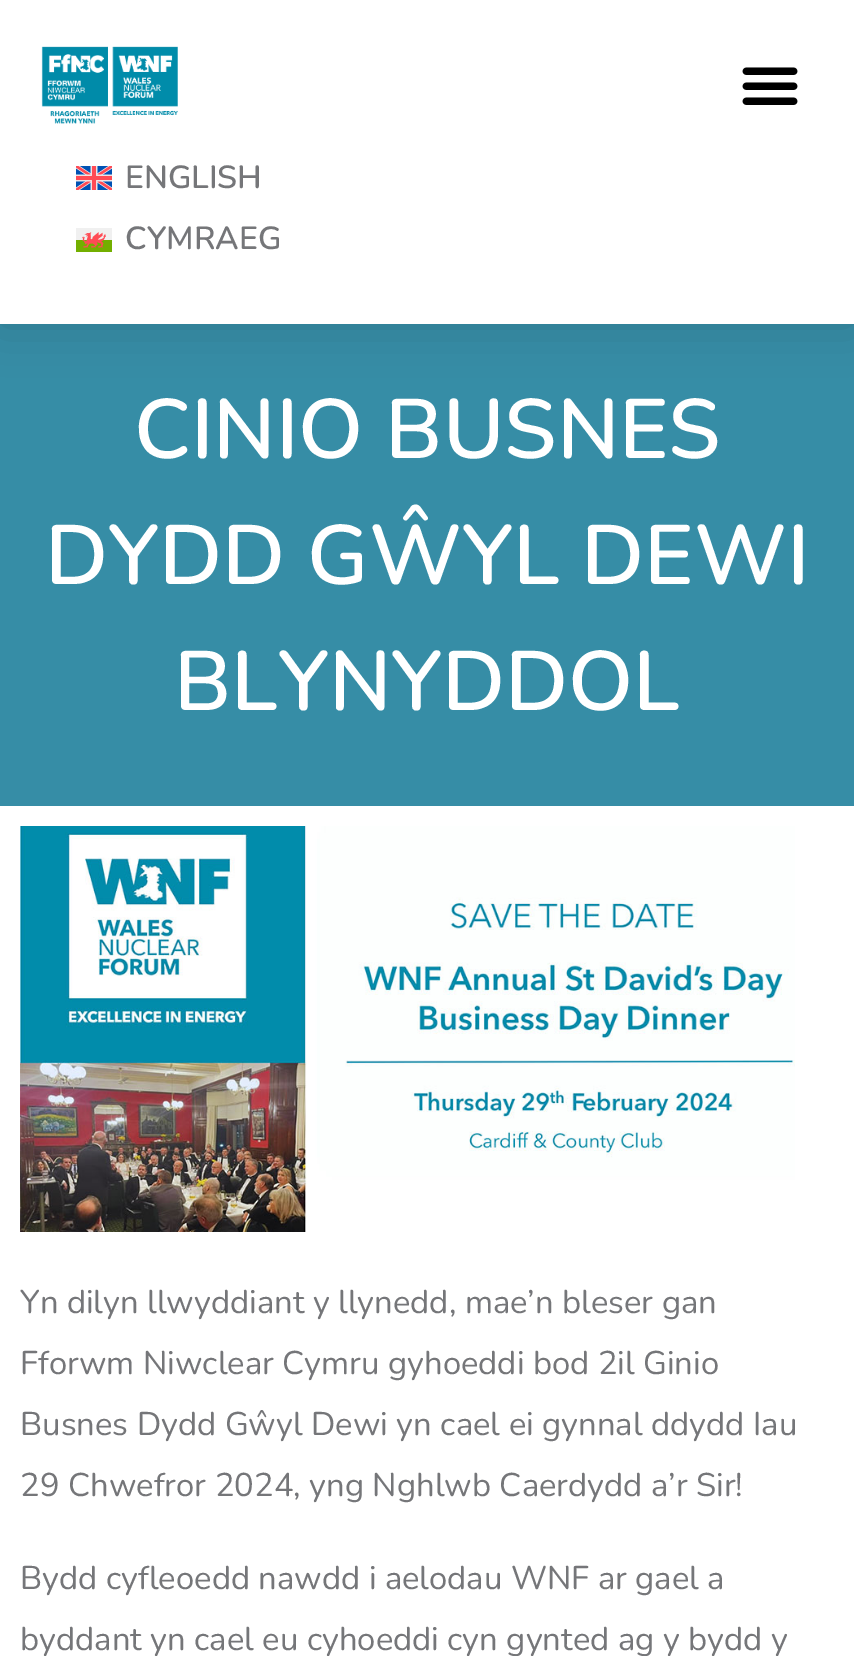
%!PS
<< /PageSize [854 1656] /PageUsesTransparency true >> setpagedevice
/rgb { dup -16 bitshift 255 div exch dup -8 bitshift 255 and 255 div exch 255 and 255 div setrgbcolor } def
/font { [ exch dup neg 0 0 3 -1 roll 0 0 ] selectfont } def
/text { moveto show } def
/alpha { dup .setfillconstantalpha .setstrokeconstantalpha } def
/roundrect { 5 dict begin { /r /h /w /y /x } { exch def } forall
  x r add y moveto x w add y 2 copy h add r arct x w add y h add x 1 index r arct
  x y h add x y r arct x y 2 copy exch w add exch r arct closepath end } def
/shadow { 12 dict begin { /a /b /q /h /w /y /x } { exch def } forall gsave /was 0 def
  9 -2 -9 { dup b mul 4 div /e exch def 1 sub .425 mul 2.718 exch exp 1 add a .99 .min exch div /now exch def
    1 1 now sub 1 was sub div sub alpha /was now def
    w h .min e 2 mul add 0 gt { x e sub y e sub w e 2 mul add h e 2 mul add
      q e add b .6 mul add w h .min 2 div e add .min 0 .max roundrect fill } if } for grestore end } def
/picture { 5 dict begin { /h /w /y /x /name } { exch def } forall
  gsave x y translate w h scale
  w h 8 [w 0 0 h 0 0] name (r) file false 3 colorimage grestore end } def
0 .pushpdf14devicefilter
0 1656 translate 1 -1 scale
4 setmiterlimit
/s1 { /Nunito-SemiBold 32 font 16#757679 rgb } def
/s2 { /Nunito-SemiBold 84 font 16#FFFFFF rgb } def
/s3 { /Nunito-Regular 32.8 font 16#757679 rgb } def
16#FFFFFF rgb
0 0 854 1656 rectfill
16#368DA6 rgb
0 324 854 482 rectfill
16#000000 rgb
0 0 854 324 0 24 0.15 shadow
16#FFFFFF rgb
0 0 854 324 rectfill
(pic1.raw) 41 46 137 78 picture
(pic2.raw) 742 67 56 38 picture
(pic3.raw) 76 166 36 24 picture
s1
(ENGLISH) 125 188 text
(pic4.raw) 76 228 36 24 picture
(CYMRAEG) 125 249 text
s2
(CINIO BUSNES) 134 458 text
(DYDD GŴYL DEWI) 45 584 text
(BLYNYDDOL) 174 710 text
(pic5.raw) 20 826 775 406 picture
s3
(Yn dilyn llwyddiant y llynedd, mae’n bleser gan) 20 1313 text
(Fforwm Niwclear Cymru gyhoeddi bod 2il Ginio) 20 1374 text
(Busnes Dydd Gŵyl Dewi yn cael ei gynnal ddydd Iau) 20 1435 text
(29 Chwefror 2024, yng Nghlwb Caerdydd a’r Sir!) 20 1496 text
(Bydd cyfleoedd nawdd i aelodau WNF ar gael a) 20 1589 text
(byddant yn cael eu cyhoeddi cyn gynted ag y bydd y) 20 1650 text
.poppdf14devicefilter showpage
